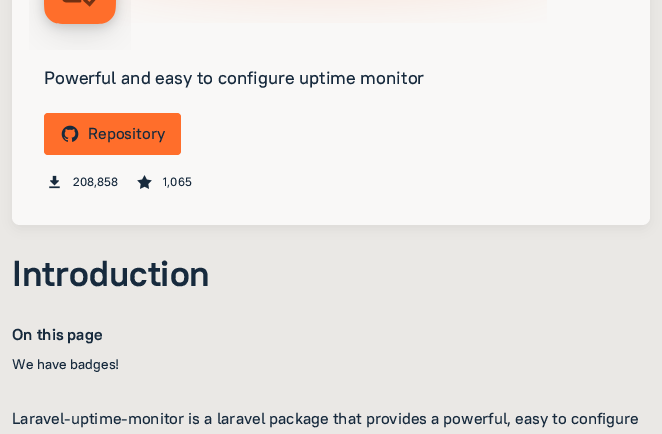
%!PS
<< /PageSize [662 434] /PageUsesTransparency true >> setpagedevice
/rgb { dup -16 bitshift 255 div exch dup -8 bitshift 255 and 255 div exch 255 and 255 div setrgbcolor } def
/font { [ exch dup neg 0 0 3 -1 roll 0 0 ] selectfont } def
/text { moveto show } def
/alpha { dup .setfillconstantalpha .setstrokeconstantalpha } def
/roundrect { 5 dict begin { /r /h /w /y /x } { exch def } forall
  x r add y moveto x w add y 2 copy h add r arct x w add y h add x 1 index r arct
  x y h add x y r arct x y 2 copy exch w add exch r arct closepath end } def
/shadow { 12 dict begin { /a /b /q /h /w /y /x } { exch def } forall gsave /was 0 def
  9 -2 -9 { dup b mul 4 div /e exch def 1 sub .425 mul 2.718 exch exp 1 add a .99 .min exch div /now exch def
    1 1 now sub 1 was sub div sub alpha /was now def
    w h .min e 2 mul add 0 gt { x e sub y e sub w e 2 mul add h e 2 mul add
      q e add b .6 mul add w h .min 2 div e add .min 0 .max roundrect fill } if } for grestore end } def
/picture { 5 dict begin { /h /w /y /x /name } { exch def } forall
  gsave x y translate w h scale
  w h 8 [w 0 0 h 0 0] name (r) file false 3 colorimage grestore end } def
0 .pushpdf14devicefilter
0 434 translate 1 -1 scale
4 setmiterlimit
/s1 { /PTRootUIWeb-Medium 18 font 16#172A3D rgb } def
/s2 { /PTRootUIWeb-Medium 16 font 16#172A3D rgb } def
/s3 { /PTRootUIWeb-Medium 12 font 16#172A3D rgb } def
/s4 { /PTRootUIWeb-Bold 36 font 16#172A3D rgb } def
/s5 { /PTRootUIWeb-Bold 16 font 16#172A3D rgb } def
/s6 { /PTRootUIWeb-Medium 14 font 16#172A3D rgb } def
16#EAE8E5 rgb
0 0 662 434 rectfill
16#000000 rgb
12 -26 638 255 8 6 0.05 shadow
16#F9F8F7 rgb
12 -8 638 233 8 roundrect fill
(pic2.raw) 116 0 431 23 picture
(pic1.raw) 29 0 102 50 picture
s1
(Powerful and easy to configure uptime monitor) 44 84 text
16#FF6E2B rgb
44 113 137 42 4 roundrect fill
(pic3.raw) 61 125 18 17 picture
s2
(Repository) 88 139 text
(pic4.raw) 49 175 11 14 picture
s3
(208,858) 73 186 text
(pic5.raw) 137 175 15 14 picture
(1,065) 163 186 text
s4
(Introduction) 12 286 text
s5
(On this page) 12 340 text
s6
(We have badges!) 12 369 text
s2
(Laravel-uptime-monitor is a laravel package that provides a powerful, easy to configure) 12 424 text
.poppdf14devicefilter showpage
